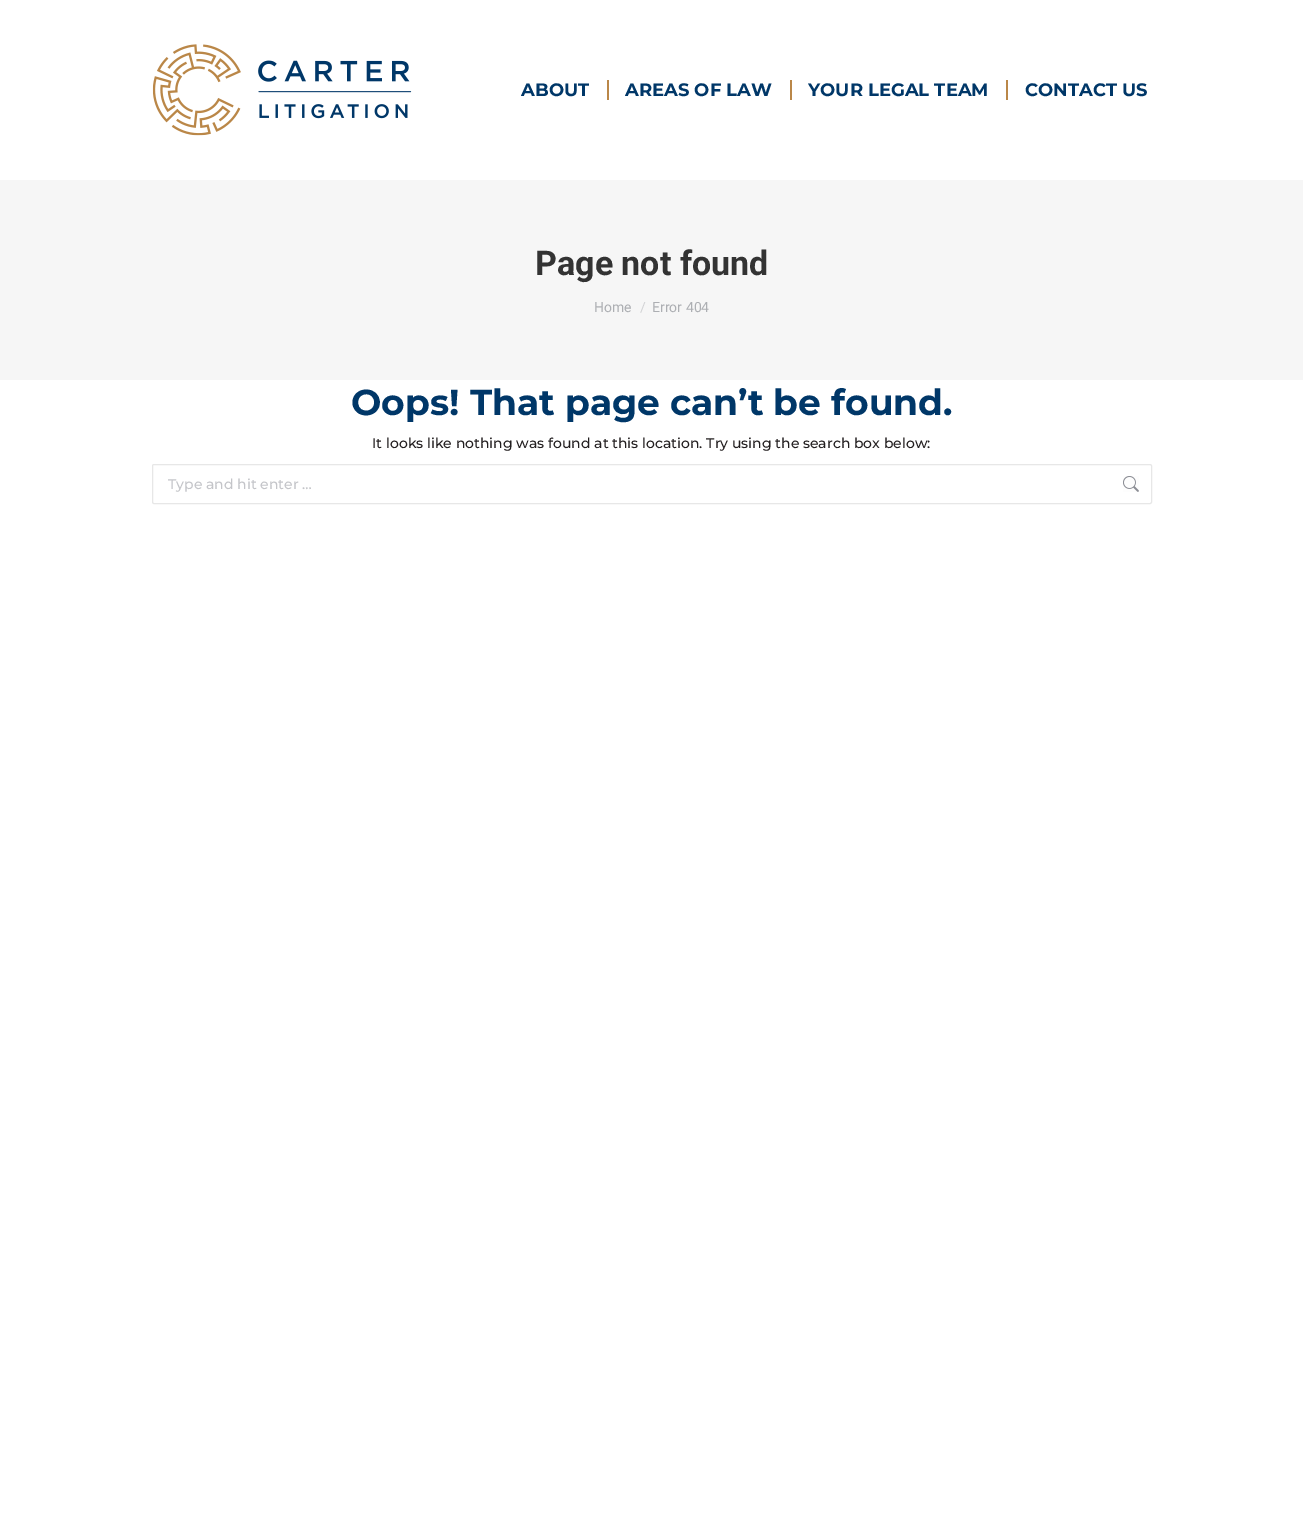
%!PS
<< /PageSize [1303 1530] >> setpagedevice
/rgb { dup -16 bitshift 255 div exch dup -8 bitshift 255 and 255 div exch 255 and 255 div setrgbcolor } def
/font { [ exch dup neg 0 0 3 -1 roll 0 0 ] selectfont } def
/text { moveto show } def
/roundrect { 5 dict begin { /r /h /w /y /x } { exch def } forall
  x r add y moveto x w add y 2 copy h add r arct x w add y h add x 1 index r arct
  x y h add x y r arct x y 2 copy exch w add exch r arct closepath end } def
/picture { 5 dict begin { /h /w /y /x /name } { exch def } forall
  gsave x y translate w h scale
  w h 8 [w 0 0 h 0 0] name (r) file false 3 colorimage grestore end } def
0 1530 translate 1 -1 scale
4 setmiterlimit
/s1 { /Montserrat-Bold 18 font 16#003768 rgb } def
/s2 { /Roboto-Bold 34 font 16#333333 rgb } def
/s3 { /Roboto-Regular 14 font 16#ADAFB3 rgb } def
/s4 { /Roboto-Regular 14 font 16#D2D3D5 rgb } def
/s5 { /Montserrat-Bold 36 font 16#003768 rgb } def
/s6 { /Montserrat-Medium 14 font 16#231F20 rgb } def
/s7 { /Montserrat-Medium 14 font 16#C4C5C9 rgb } def
16#FFFFFF rgb
0 0 1303 1530 rectfill
(pic1.raw) 152 44 260 92 picture
s1
(ABOUT) 521 96 text
16#BA8748 rgb
607 80 2 20 rectfill
s1
(AREAS OF LAW) 625 96 text
16#BA8748 rgb
790 80 2 20 rectfill
s1
(YOUR LEGAL TEAM) 808 96 text
16#BA8748 rgb
1006 80 2 20 rectfill
s1
(CONTACT US) 1025 96 text
16#F6F6F6 rgb
0 180 1303 200 rectfill
s2
(Page not found) 535 275 text
s3
(Home) 594 312 text
s4
(/) 640 312 text
s3
(Error 404) 652 312 text
s5
(Oops! That page can’t be found.) 351 415 text
s6
(It looks like nothing was found at this location. Try using the search box below:) 372 448 text
16#E7E7E7 rgb
152.5 464.5 999 39 1.5 roundrect stroke
s7
(Type and hit enter …) 168 489 text
(pic2.raw) 1123 476 16 16 picture
showpage
